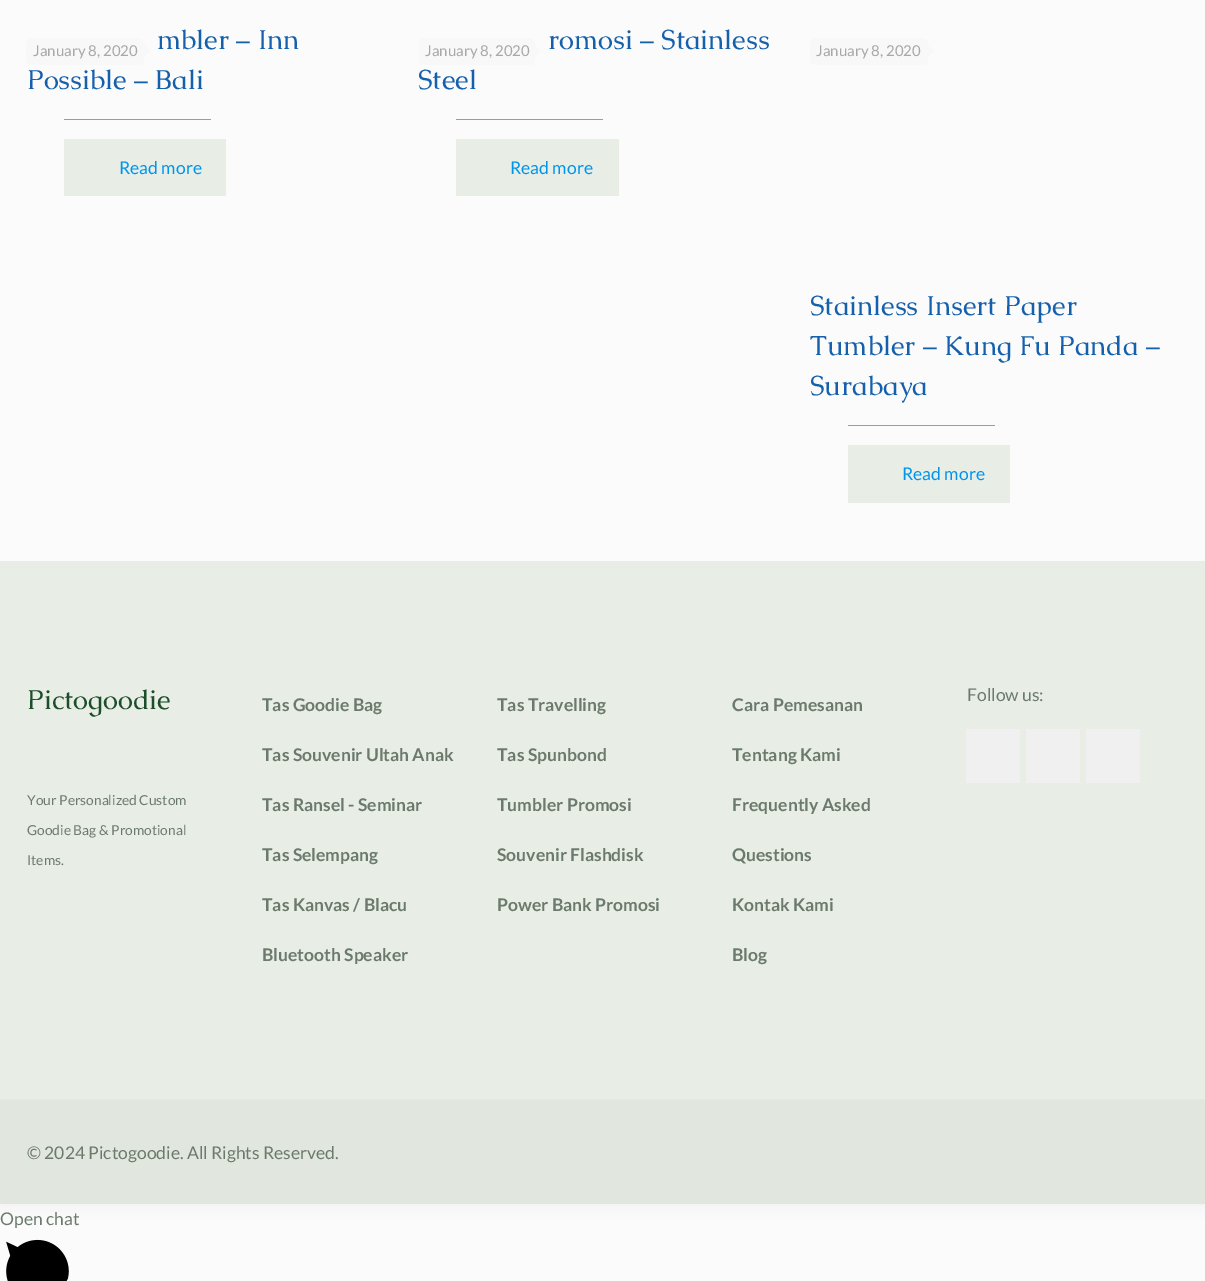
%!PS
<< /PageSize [1205 1281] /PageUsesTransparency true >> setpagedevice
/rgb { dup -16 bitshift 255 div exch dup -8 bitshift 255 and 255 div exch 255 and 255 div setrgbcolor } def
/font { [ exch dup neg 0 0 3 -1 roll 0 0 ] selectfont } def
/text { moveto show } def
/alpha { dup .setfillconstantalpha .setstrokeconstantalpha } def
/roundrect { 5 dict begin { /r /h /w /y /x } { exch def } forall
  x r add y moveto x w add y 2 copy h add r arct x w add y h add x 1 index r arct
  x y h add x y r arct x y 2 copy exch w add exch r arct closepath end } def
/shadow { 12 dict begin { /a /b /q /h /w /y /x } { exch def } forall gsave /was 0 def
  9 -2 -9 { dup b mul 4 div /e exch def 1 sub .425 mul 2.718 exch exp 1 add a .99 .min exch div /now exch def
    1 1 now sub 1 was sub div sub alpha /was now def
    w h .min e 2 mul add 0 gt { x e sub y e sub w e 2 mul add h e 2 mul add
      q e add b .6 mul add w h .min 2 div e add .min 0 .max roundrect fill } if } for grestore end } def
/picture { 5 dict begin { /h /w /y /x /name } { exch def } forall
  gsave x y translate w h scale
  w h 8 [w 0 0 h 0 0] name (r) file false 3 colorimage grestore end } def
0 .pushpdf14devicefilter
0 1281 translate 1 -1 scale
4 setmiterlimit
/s1 { /Caudex-Regular 27.5 font 16#1560AC rgb } def
/s2 { /Lato-Regular 17.5 font 16#0095EB rgb } def
/s3 { /Lato-Regular 15 font 16#A8A8A8 rgb } def
/s4 { /Caudex-Regular 27.5 font 16#1C4E2A rgb } def
/s5 { /Lato-Regular 13.75 font 16#6B7A6B rgb } def
/s6 { /Lato-Bold 17.5 font 16#6B7A6B rgb } def
/s7 { /Lato-Regular 17.5 font 16#6B7A6B rgb } def
16#FAFBFA rgb
0 0 1205 1281 rectfill
16#000000 rgb
0 -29 1205 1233 0 9.5 0.06 shadow
16#FAFBFA rgb
0 0 1205 561 rectfill
s1
(mbler – Inn) 157 49 text
(Possible – Bali) 27 89 text
16#CB9734 rgb
64 119 147 1 rectfill
16#E8EDE6 rgb
64 139 162 57 rectfill
s2
(Read more) 119 174 text
16#F8F8F8 rgb
26 38 118 27 5 roundrect fill
s3
(January 8, 2020) 33 56 text
16#F8F8F8 rgb
144 57.5 moveto 144 45 lineto 150 51 lineto closepath fill
s1
(romosi – Stainless) 548 49 text
(Steel) 418 89 text
16#CB9734 rgb
456 119 147 1 rectfill
16#E8EDE6 rgb
456 139 163 57 rectfill
s2
(Read more) 510 174 text
16#F8F8F8 rgb
419 38 116 27 5 roundrect fill
s3
(January 8, 2020) 425 56 text
16#F8F8F8 rgb
535 57.5 moveto 535 45 lineto 541 51 lineto closepath fill
810 38 118 27 5 roundrect fill
s3
(January 8, 2020) 816 56 text
16#F8F8F8 rgb
927.5 57.5 moveto 927.5 45 lineto 934 51 lineto closepath fill
s1
(Stainless Insert Paper) 810 315 text
(Tumbler – Kung Fu Panda –) 810 355 text
(Surabaya) 810 395 text
16#CB9734 rgb
848 425 147 1 rectfill
16#E8EDE6 rgb
848 445 162 58 rectfill
s2
(Read more) 902 480 text
16#E8EDE6 rgb
0 561 1205 538 rectfill
s4
(Pictogoodie) 27 709 text
s5
(Your Personalized Custom) 27 805 text
(Goodie Bag & Promotional) 27 835 text
(Items.) 27 865 text
s6
(Tas Goodie Bag) 262 711 text
(Tas Souvenir Ultah Anak) 262 761 text
(Tas Ransel - Seminar) 262 811 text
(Tas Selempang) 262 861 text
(Tas Kanvas / Blacu) 262 911 text
(Bluetooth Speaker) 262 961 text
(Tas Travelling) 497 711 text
(Tas Spunbond) 497 761 text
(Tumbler Promosi) 497 811 text
(Souvenir Flashdisk) 497 861 text
(Power Bank Promosi) 497 911 text
(Cara Pemesanan) 732 711 text
(Tentang Kami) 732 761 text
(Frequently Asked) 732 811 text
(Questions) 732 861 text
(Kontak Kami) 732 911 text
(Blog) 732 961 text
s7
(Follow us:) 967 701 text
16#F0F0F0 rgb
966 729 54 54 rectfill
1026 729 54 54 rectfill
1086 729 54 54 rectfill
16#E1E7DE rgb
0 1100 1205 104 rectfill
16#E4E9E1 rgb
0 1099 1205 1 rectfill
s7
(© 2024 Pictogoodie. All Rights Reserved.) 27 1159 text
(Open chat) 0 1225 text
(pic1.raw) 6 1239 63 42 picture
.poppdf14devicefilter showpage
